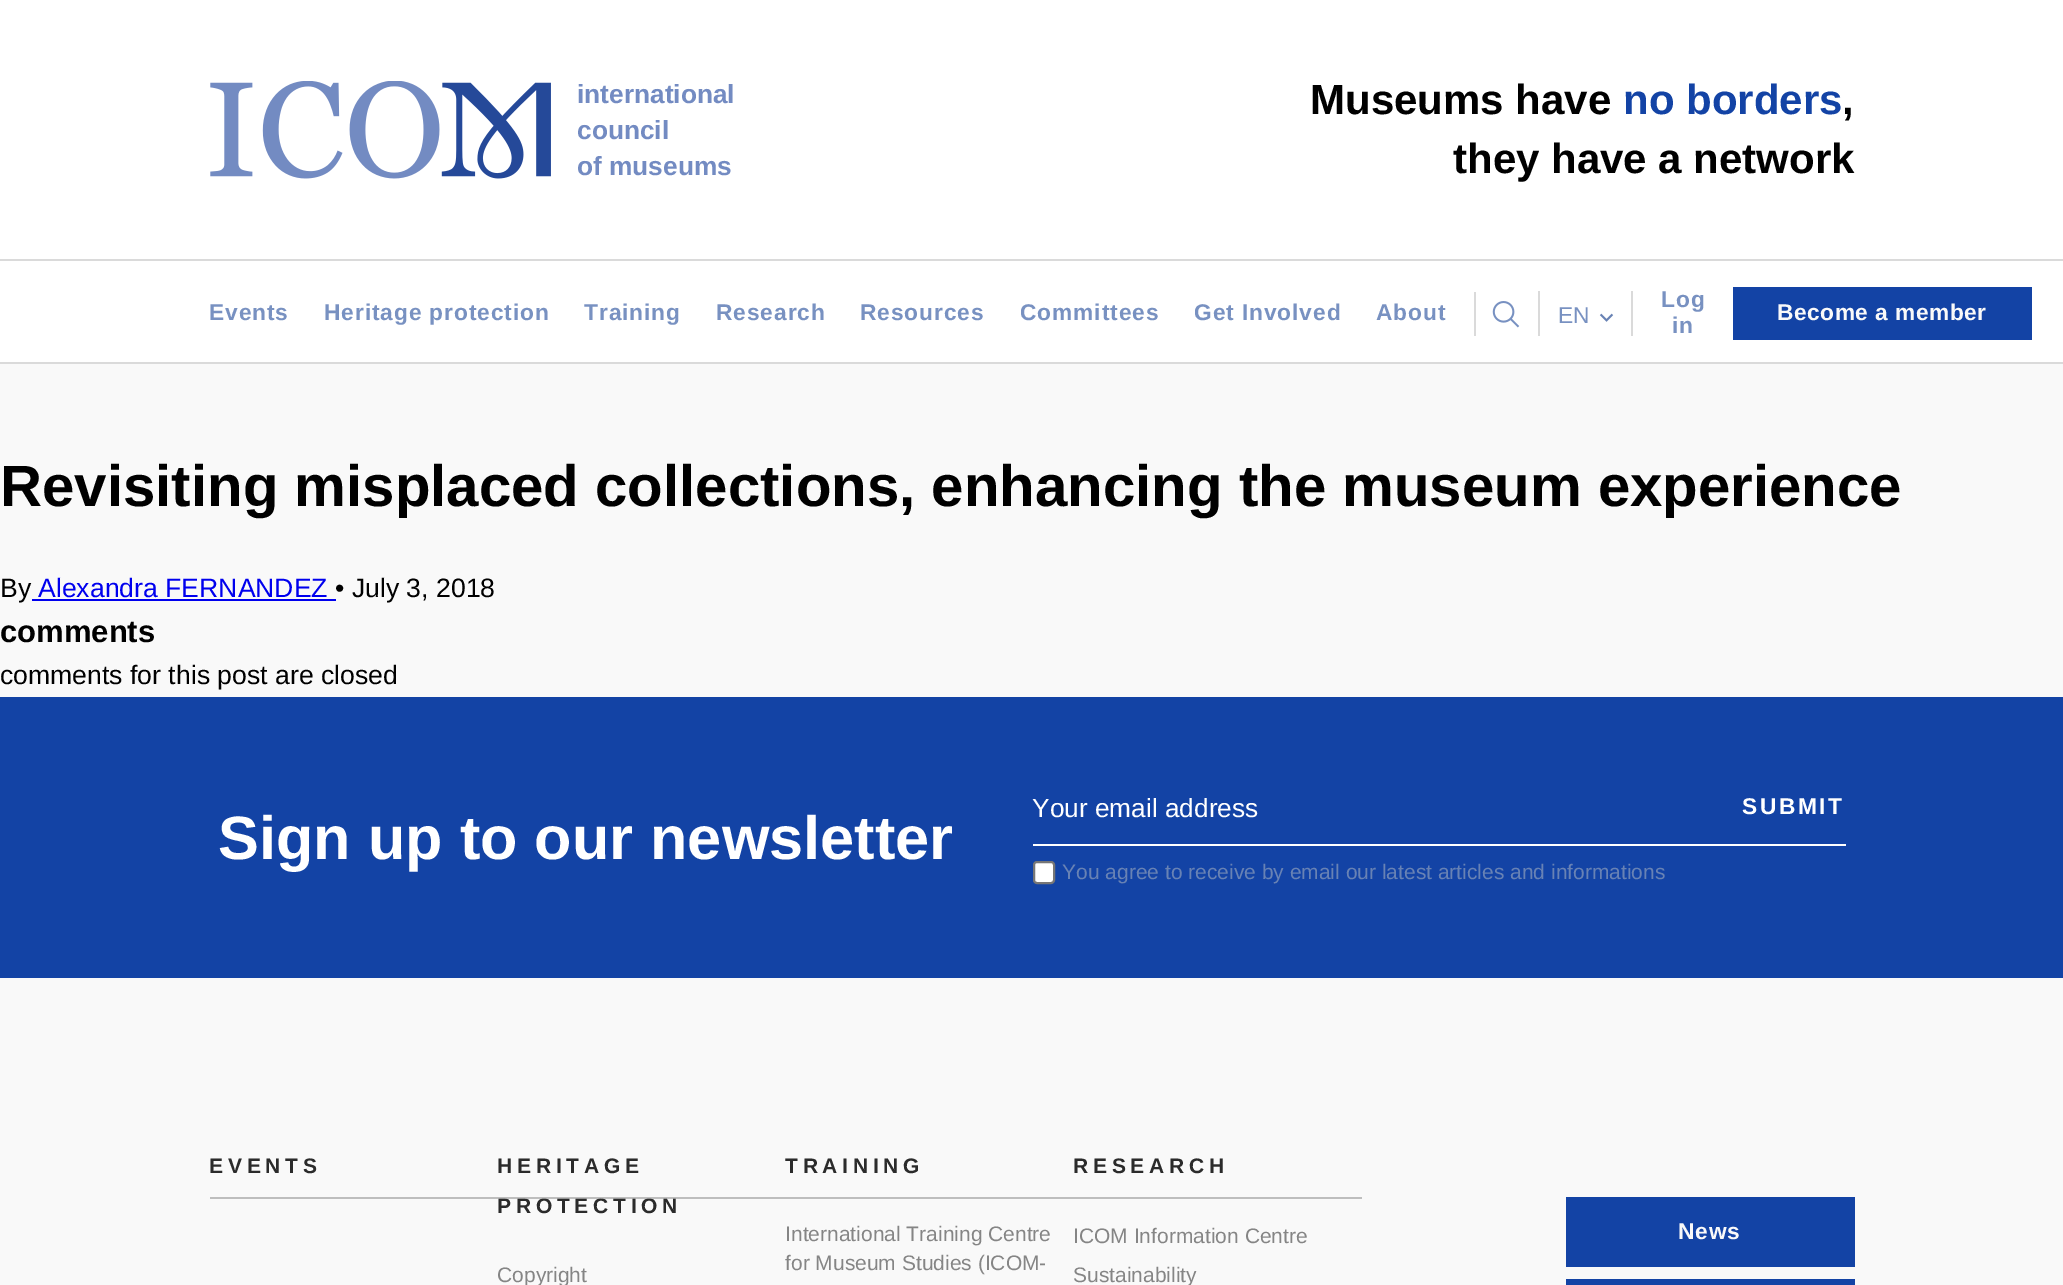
%!PS
<< /PageSize [2063 1285] /PageUsesTransparency true >> setpagedevice
/rgb { dup -16 bitshift 255 div exch dup -8 bitshift 255 and 255 div exch 255 and 255 div setrgbcolor } def
/font { [ exch dup neg 0 0 3 -1 roll 0 0 ] selectfont } def
/text { moveto show } def
/alpha { dup .setfillconstantalpha .setstrokeconstantalpha } def
/roundrect { 5 dict begin { /r /h /w /y /x } { exch def } forall
  x r add y moveto x w add y 2 copy h add r arct x w add y h add x 1 index r arct
  x y h add x y r arct x y 2 copy exch w add exch r arct closepath end } def
/picture { 5 dict begin { /h /w /y /x /name } { exch def } forall
  gsave x y translate w h scale
  w h 8 [w 0 0 h 0 0] name (r) file false 3 colorimage grestore end } def
0 .pushpdf14devicefilter
0 1285 translate 1 -1 scale
4 setmiterlimit
/s1 { /LiberationSans-Bold 26.25 font 16#738BC2 rgb } def
/s2 { /LiberationSans-Bold 42 font 16#000000 rgb } def
/s3 { /LiberationSans-Bold 42 font 16#1343A5 rgb } def
/s4 { /LiberationSans-Regular 22.75 font 16#7891C1 rgb } def
/s5 { /LiberationSans-Bold 58.2 font 16#000000 rgb } def
/s6 { /LiberationSans-Regular 26.6 font 16#000000 rgb } def
/s7 { /LiberationSans-Regular 26.6 font 16#0000EE rgb } def
/s8 { /LiberationSans-Bold 31 font 16#000000 rgb } def
/s9 { /LiberationSans-Bold 61.25 font 16#FFFFFF rgb } def
/s10 { /LiberationSans-Regular 26.25 font 16#FFFFFF rgb } def
/s11 { /LiberationSans-Regular 21 font 16#6882B4 rgb } def
/s12 { /LiberationSans-Regular 21 font 16#858585 rgb } def
16#F9F9F9 rgb
0 0 2063 1285 rectfill
16#FFFFFF rgb
0 0 2063 362 rectfill
(pic1.raw) 210 81 341 98 picture
s1
(international) 577 103 text
(council) 577 139 text
(of museums) 577 175 text
s2
(Museums have) 1310 114 text
s3
(no borders) 1623 114 text
s2
(,) 1842 114 text
(they have a network) 1453 173 text
16#DADADA rgb
0 259 2063 2 rectfill
0 362 2063 2 rectfill
/LiberationSans-Bold 22.75 font
16#7891C1 rgb
209 320 moveto 0.9 0 (Events) ashow
324 320 moveto 0.9 0 (Heritage protection) ashow
584 320 moveto 0.9 0 (Training) ashow
716 320 moveto 0.9 0 (Research) ashow
860 320 moveto 0.9 0 (Resources) ashow
1020 320 moveto 0.9 0 (Committees) ashow
1194 320 moveto 0.9 0 (Get Involved) ashow
1376 320 moveto 0.9 0 (About) ashow
16#DADADA rgb
1474 292 2 44 rectfill
(pic2.raw) 1492 301 28 27 picture
1631 291 2 45 rectfill
1538 291 2 45 rectfill
s4
(EN) 1558 323 text
(pic3.raw) 1599 313 15 9 picture
/LiberationSans-Bold 22.75 font
1661 307 moveto 0.9 0 (Log) ashow
1672 333 moveto 0.9 0 (in) ashow
16#1343A5 rgb
1733 287 299 53 rectfill
16#F9F9F9 rgb
1777 320 moveto 0.5 0 (Become a member) ashow
s5
(Revisiting misplaced collections, enhancing the museum experience) 0 506 text
s6
(By) 0 597 text
s7
(Alexandra FERNANDEZ) 38 597 text
32 599 304 2 rectfill
s6
(• July 3, 2018) 335 597 text
s8
(comments) 0 642 text
s6
(comments for this post are closed) 0 684 text
16#1343A5 rgb
0 697 2063 281 rectfill
s9
(Sign up to our newsletter) 218 859 text
1033 844 813 2 rectfill
s10
(Your email address) 1032 817 text
1034 862 20 21 3 roundrect gsave fill grestore
16#767676 rgb
2 setlinewidth
stroke
s11
(You agree to receive by email our latest articles and informations) 1062 879 text
/LiberationSans-Bold 22.75 font
16#FFFFFF rgb
1742 814 moveto 2.5 0 (SUBMIT) ashow
/LiberationSans-Bold 21 font
16#2B2B2B rgb
209 1173 moveto 4.75 0 (EVENTS) ashow
16#BEBEBE rgb
210 1197 287 2 rectfill
16#2B2B2B rgb
497 1173 moveto 4.75 0 (HERITAGE) ashow
497 1213 moveto 4.75 0 (PROTECTION) ashow
0.6 alpha
16#979797 rgb
497 1197 289 2 rectfill
1 alpha
s12
(Copyright) 497 1282 text
/LiberationSans-Bold 21 font
16#2B2B2B rgb
785 1173 moveto 4.75 0 (TRAINING) ashow
16#BEBEBE rgb
786 1197 576 2 rectfill
s12
(International Training Centre) 785 1241 text
(for Museum Studies \(ICOM-) 785 1270 text
/LiberationSans-Bold 21 font
16#2B2B2B rgb
1073 1173 moveto 4.75 0 (RESEARCH) ashow
s12
(ICOM Information Centre) 1073 1243 text
(Sustainability) 1073 1282 text
16#1343A5 rgb
1566 1197 289 70 rectfill
/LiberationSans-Bold 22.75 font
16#F9F9F9 rgb
1678 1239 moveto 0.9 0 (News) ashow
16#1343A5 rgb
1566 1279 289 6 rectfill
.poppdf14devicefilter showpage
